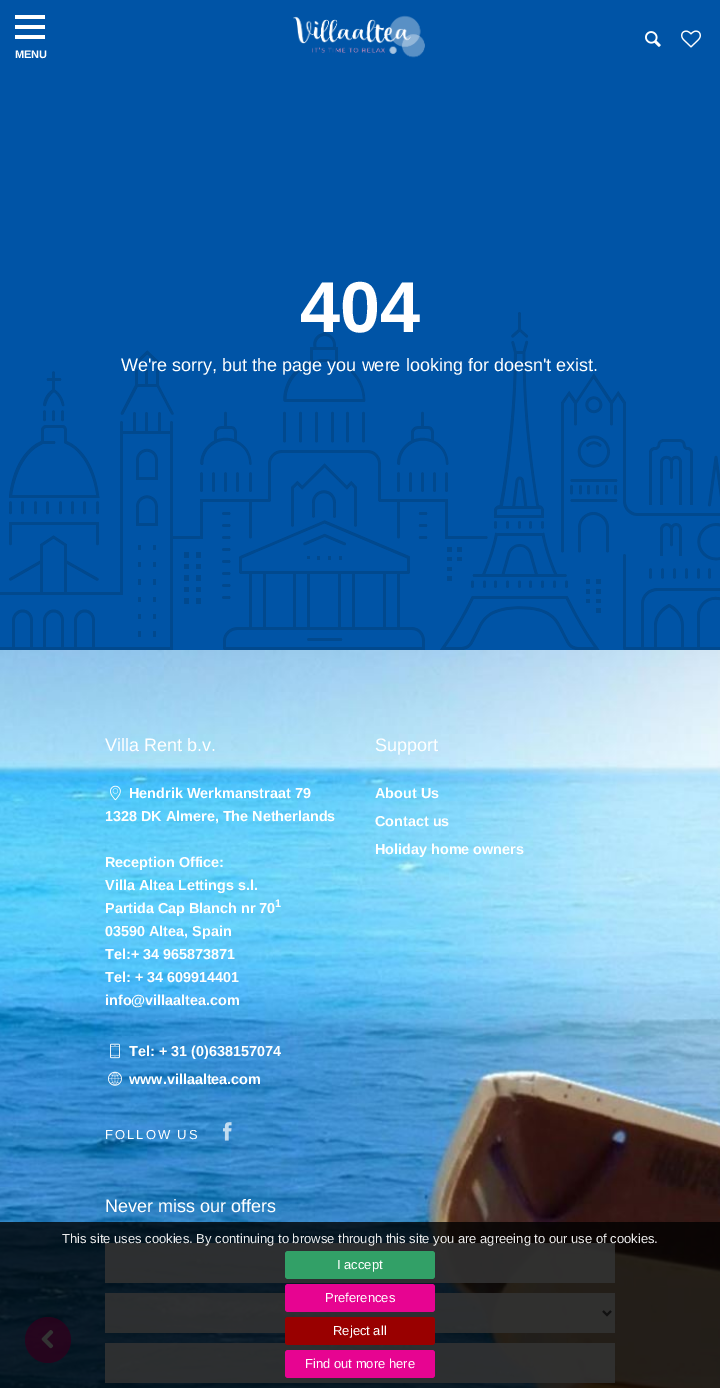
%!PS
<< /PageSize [720 1388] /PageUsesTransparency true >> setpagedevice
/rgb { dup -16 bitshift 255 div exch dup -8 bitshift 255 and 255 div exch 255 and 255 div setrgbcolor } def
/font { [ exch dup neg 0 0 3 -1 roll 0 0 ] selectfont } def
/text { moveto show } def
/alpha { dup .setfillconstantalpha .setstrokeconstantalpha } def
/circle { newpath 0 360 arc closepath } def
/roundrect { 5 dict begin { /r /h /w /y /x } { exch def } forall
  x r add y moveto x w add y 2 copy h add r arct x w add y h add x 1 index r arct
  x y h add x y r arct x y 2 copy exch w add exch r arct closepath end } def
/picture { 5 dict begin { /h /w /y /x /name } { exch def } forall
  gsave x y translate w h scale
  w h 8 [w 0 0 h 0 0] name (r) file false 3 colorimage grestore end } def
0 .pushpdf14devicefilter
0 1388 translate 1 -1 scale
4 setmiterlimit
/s1 { /LiberationSans-Bold 11 font 16#FFFFFF rgb } def
/s2 { /LiberationSans-Bold 72 font 16#FFFFFF rgb } def
/s3 { /LiberationSans-Regular 18 font 16#FFFFFF rgb } def
/s4 { /LiberationSans-Bold 14.4 font 16#FFFFFF rgb } def
/s5 { /LiberationSans-Regular 13 font 16#EEEEEE rgb } def
/s6 { /LiberationSans-Regular 13 font 16#FFFFFF rgb } def
16#FFFFFF rgb
0 0 720 1388 rectfill
16#0054A6 rgb
0 0 720 650 rectfill
(pic1.raw) 293 15 132 43 picture
(pic2.raw) 645 31 16 16 picture
(pic3.raw) 681 30 20 18 picture
16#FFFFFF rgb
15 25 30 4 rectfill
15 15 30 4 rectfill
15 35 30 4 rectfill
s1
(MENU) 15 58 text
(pic4.raw) 0 312 720 338 picture
s2
(404) 300 332 text
s3
(We're sorry, but the page you were looking for doesn't exist.) 121 371 text
(pic5.raw) 0 650 720 738 picture
(Villa Rent b.v.) 105 751 text
(pic6.raw) 110 785 11 16 picture
s4
(Hendrik Werkmanstraat 79) 129 798 text
(1328 DK Almere, The Netherlands) 105 821 text
(Reception Office:) 105 867 text
(Villa Altea Lettings s.l.) 105 890 text
(Partida Cap Blanch nr 70) 105 913 text
s1
(1) 275 907 text
s4
(03590 Altea, Spain) 105 936 text
(Tel:+ 34 965873871) 105 959 text
(Tel: + 34 609914401) 105 982 text
(info@villaaltea.com) 105 1005 text
(pic7.raw) 110 1043 10 16 picture
(Tel: + 31 \(0\)638157074) 129 1056 text
(pic8.raw) 108 1071 14 15 picture
(www.villaaltea.com) 129 1084 text
/LiberationSans-Regular 13 font
105 1139 moveto 2 0 (FOLLOW US) ashow
(pic9.raw) 223 1122 9 19 picture
s3
(Support) 375 751 text
s4
(About Us) 375 798 text
(Contact us) 375 826 text
(Holiday home owners) 375 854 text
s3
(Never miss our offers) 105 1212 text
0.89 alpha
16#F8F9FA rgb
105 1243 510 40 rectfill
105 1293 510 40 rectfill
1 alpha
16#555555 rgb
2 setlinewidth
603 1311 moveto 607 1315 lineto 611 1311 lineto stroke
0.89 alpha
16#F8F9FA rgb
105 1343 510 40 rectfill
0.8 alpha
16#DE028A rgb
48 1340 23 circle fill
1 alpha
(pic10.raw) 41 1330 13 19 picture
0.8 alpha
16#000000 rgb
0 1222 720 166 rectfill
1 alpha
s5
(This site uses cookies. By continuing to browse through this site you are agreeing to our use of cookies.) 62 1243 text
16#32A067 rgb
285 1251 150 28 3 roundrect fill
s6
(I accept) 337 1269 text
16#E70491 rgb
285 1284 150 28 3 roundrect fill
s6
(Preferences) 325 1302 text
16#990000 rgb
285 1317 150 28 3 roundrect fill
s6
(Reject all) 333 1335 text
16#E70491 rgb
285 1350 150 28 3 roundrect fill
s6
(Find out more here) 305 1368 text
.poppdf14devicefilter showpage
